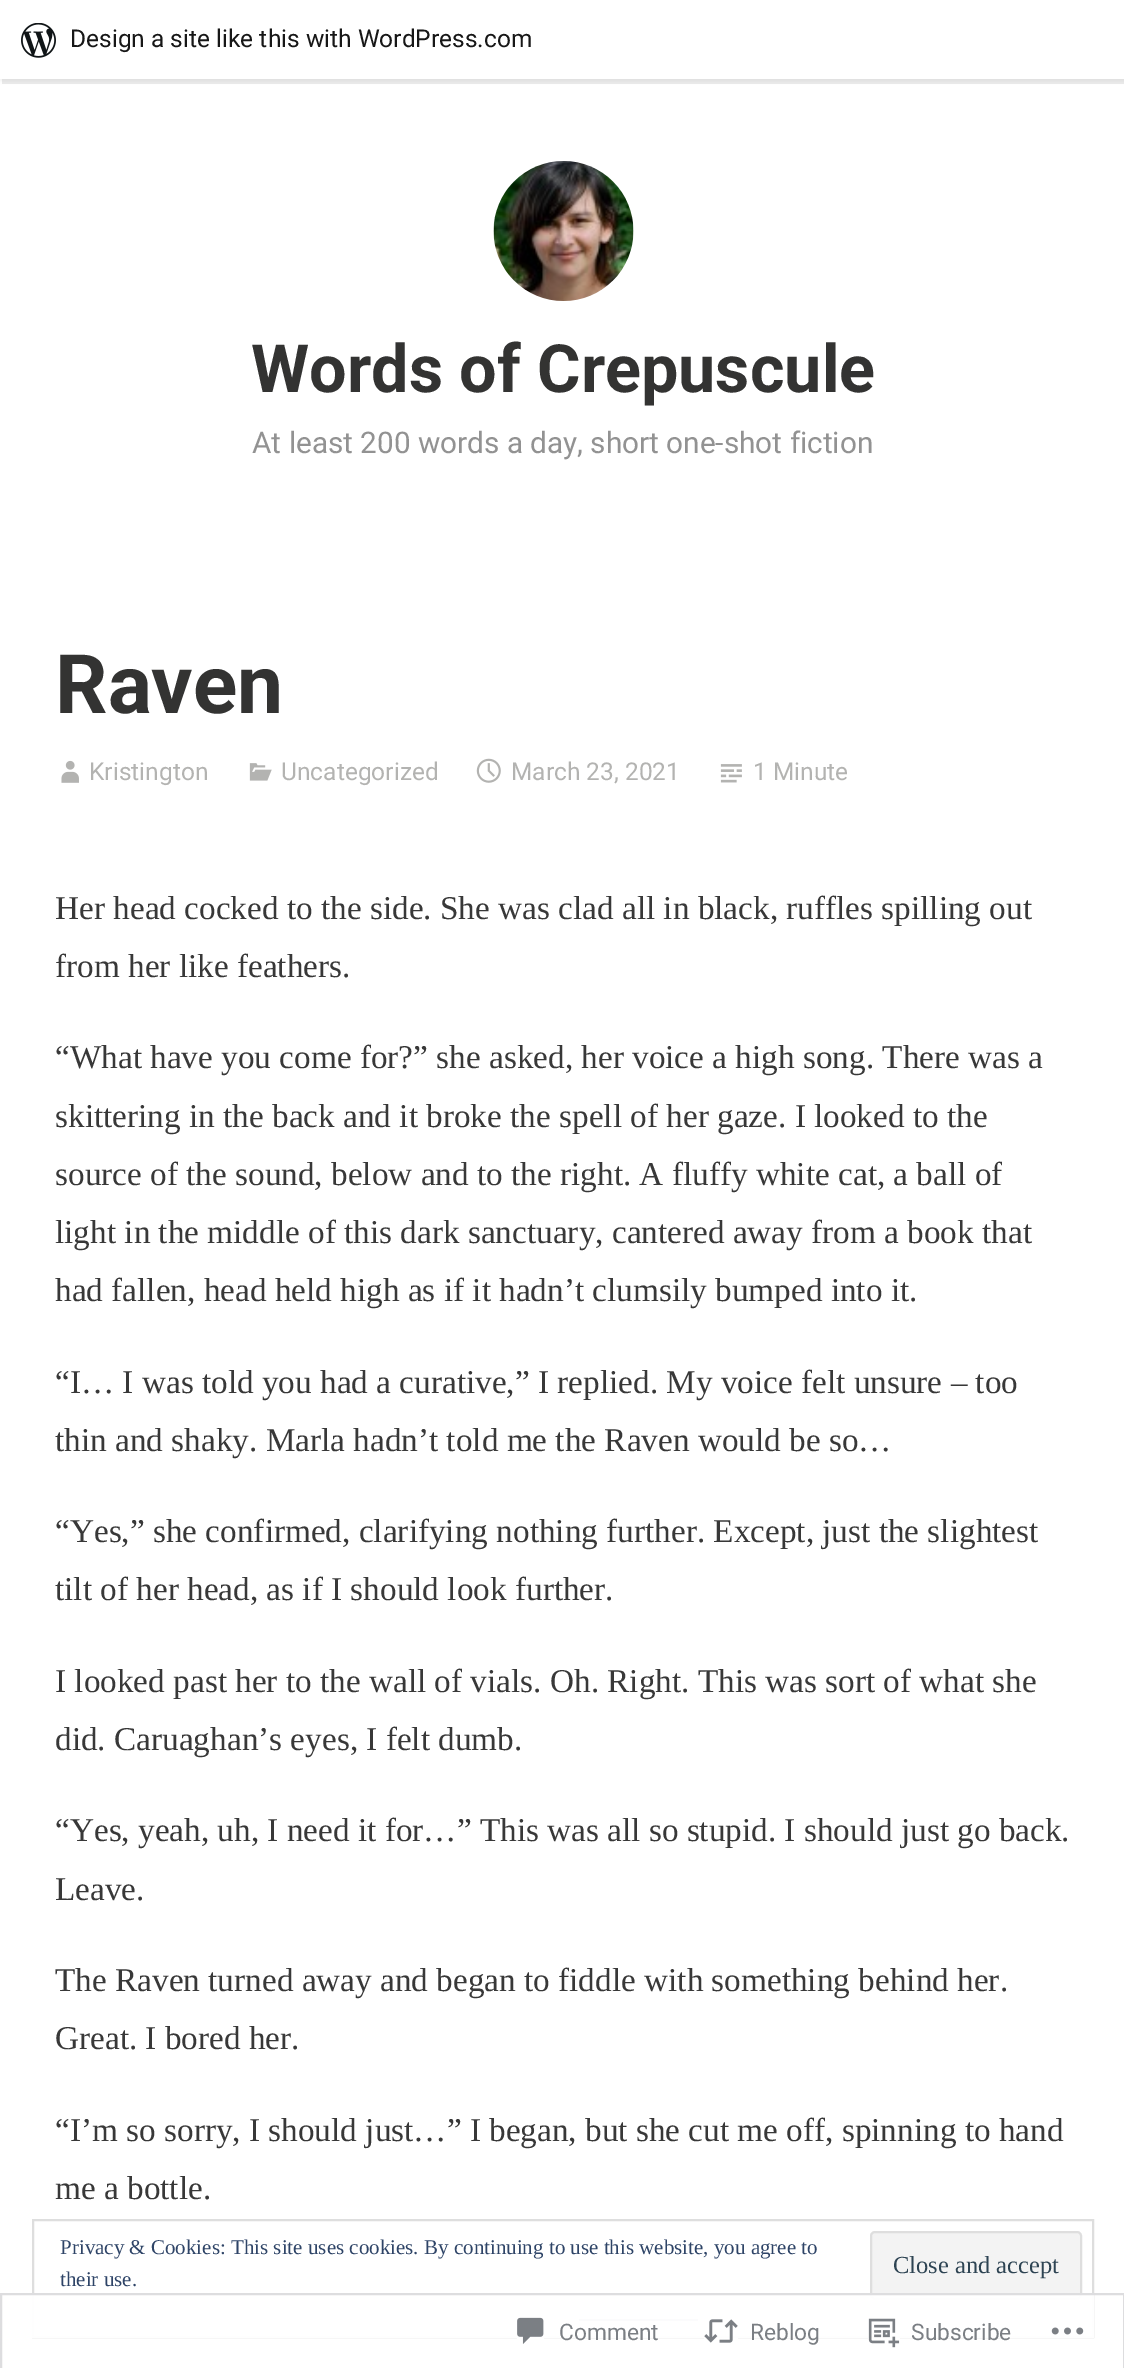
%!PS
<< /PageSize [1124 2368] /PageUsesTransparency true >> setpagedevice
/rgb { dup -16 bitshift 255 div exch dup -8 bitshift 255 and 255 div exch 255 and 255 div setrgbcolor } def
/font { [ exch dup neg 0 0 3 -1 roll 0 0 ] selectfont } def
/text { moveto show } def
/alpha { dup .setfillconstantalpha .setstrokeconstantalpha } def
/roundrect { 5 dict begin { /r /h /w /y /x } { exch def } forall
  x r add y moveto x w add y 2 copy h add r arct x w add y h add x 1 index r arct
  x y h add x y r arct x y 2 copy exch w add exch r arct closepath end } def
/shadow { 12 dict begin { /a /b /q /h /w /y /x } { exch def } forall gsave /was 0 def
  9 -2 -9 { dup b mul 4 div /e exch def 1 sub .425 mul 2.718 exch exp 1 add a .99 .min exch div /now exch def
    1 1 now sub 1 was sub div sub alpha /was now def
    w h .min e 2 mul add 0 gt { x e sub y e sub w e 2 mul add h e 2 mul add
      q e add b .6 mul add w h .min 2 div e add .min 0 .max roundrect fill } if } for grestore end } def
/picture { 5 dict begin { /h /w /y /x /name } { exch def } forall
  gsave x y translate w h scale
  w h 8 [w 0 0 h 0 0] name (r) file false 3 colorimage grestore end } def
0 .pushpdf14devicefilter
0 2368 translate 1 -1 scale
4 setmiterlimit
/s1 { /Roboto-Regular 24.5 font 16#171717 rgb } def
/s2 { /Roboto-Bold 66.5 font 16#333332 rgb } def
/s3 { /Roboto-Regular 29.75 font 16#929292 rgb } def
/s4 { /Roboto-Bold 82 font 16#333332 rgb } def
/s5 { /Roboto-Regular 24.5 font 16#B3B3B1 rgb } def
/s6 { /LiberationSerif-Regular 33.25 font 16#383838 rgb } def
/s7 { /LiberationSerif-Regular 21 font 16#2E4467 rgb } def
/s8 { /LiberationSerif-Regular 24.5 font 16#2E4453 rgb } def
/s9 { /Roboto-Regular 22.75 font 16#7B7F84 rgb } def
16#FFFFFF rgb
0 0 1124 2368 rectfill
16#000000 rgb
0 2 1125 79 0 2 0.05 shadow
0.08 alpha
2 79 moveto 2 84 lineto 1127 84 lineto 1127 5 lineto 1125 5 lineto 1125 79 lineto closepath fill
1 alpha
16#FFFFFF rgb
0 0 1124 79 rectfill
(pic1.raw) 21 23 35 35 picture
s1
(Design a site like this with WordPress.com) 70 47 text
(pic2.raw) 493 161 141 140 picture
s2
(Words of Crepuscule) 251 392 text
s3
(At least 200 words a day, short one-shot fiction) 252 453 text
s4
(Raven) 55 713 text
(pic3.raw) 61 760 18 23 picture
s5
(Kristington) 89 780 text
(pic4.raw) 249 763 23 18 picture
(Uncategorized) 281 780 text
(pic5.raw) 476 758 25 25 picture
(March 23, 2021) 511 780 text
(pic6.raw) 720 764 22 19 picture
(1 Minute) 753 780 text
s6
(Her head cocked to the side. She was clad all in black, ruffles spilling out) 55 919 text
(from her like feathers.) 55 977 text
(“What have you come for?” she asked, her voice a high song. There was a) 55 1068 text
(skittering in the back and it broke the spell of her gaze. I looked to the) 55 1127 text
(source of the sound, below and to the right. A fluffy white cat, a ball of) 55 1185 text
(light in the middle of this dark sanctuary, cantered away from a book that) 55 1243 text
(had fallen, head held high as if it hadn’t clumsily bumped into it.) 55 1301 text
(“I… I was told you had a curative,” I replied. My voice felt unsure – too) 55 1393 text
(thin and shaky. Marla hadn’t told me the Raven would be so…) 55 1451 text
(“Yes,” she confirmed, clarifying nothing further. Except, just the slightest) 55 1542 text
(tilt of her head, as if I should look further.) 55 1600 text
(I looked past her to the wall of vials. Oh. Right. This was sort of what she) 55 1692 text
(did. Caruaghan’s eyes, I felt dumb.) 55 1750 text
(“Yes, yeah, uh, I need it for…” This was all so stupid. I should just go back.) 55 1841 text
(Leave.) 55 1900 text
(The Raven turned away and began to fiddle with something behind her.) 55 1991 text
(Great. I bored her.) 55 2049 text
(“I’m so sorry, I should just…” I began, but she cut me off, spinning to hand) 55 2141 text
(me a bottle.) 55 2199 text
16#DEDEDE rgb
2 setlinewidth
33 2220 1060 117 rectstroke
s7
(Privacy & Cookies: This site uses cookies. By continuing to use this website, you agree to) 60 2254 text
(their use.) 60 2286 text
16#F3F3F3 rgb
871 2232 210 67 4 roundrect gsave fill grestore
16#DEDEDE rgb
stroke
s8
(Close and accept) 893 2273 text
16#2E4467 rgb
579 2319 119 2 rectfill
0.98 alpha
16#FFFFFF rgb
32 2295 1062 43 rectfill
1 alpha
16#DDDDDF rgb
1 2294 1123 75 rectstroke
(pic7.raw) 517 2317 27 27 picture
s9
(Comment) 559 2340 text
(pic8.raw) 704 2319 34 24 picture
(Reblog) 750 2340 text
(pic9.raw) 868 2318 32 30 picture
(Subscribe) 911 2340 text
(pic10.raw) 1051 2327 33 8 picture
.poppdf14devicefilter showpage
